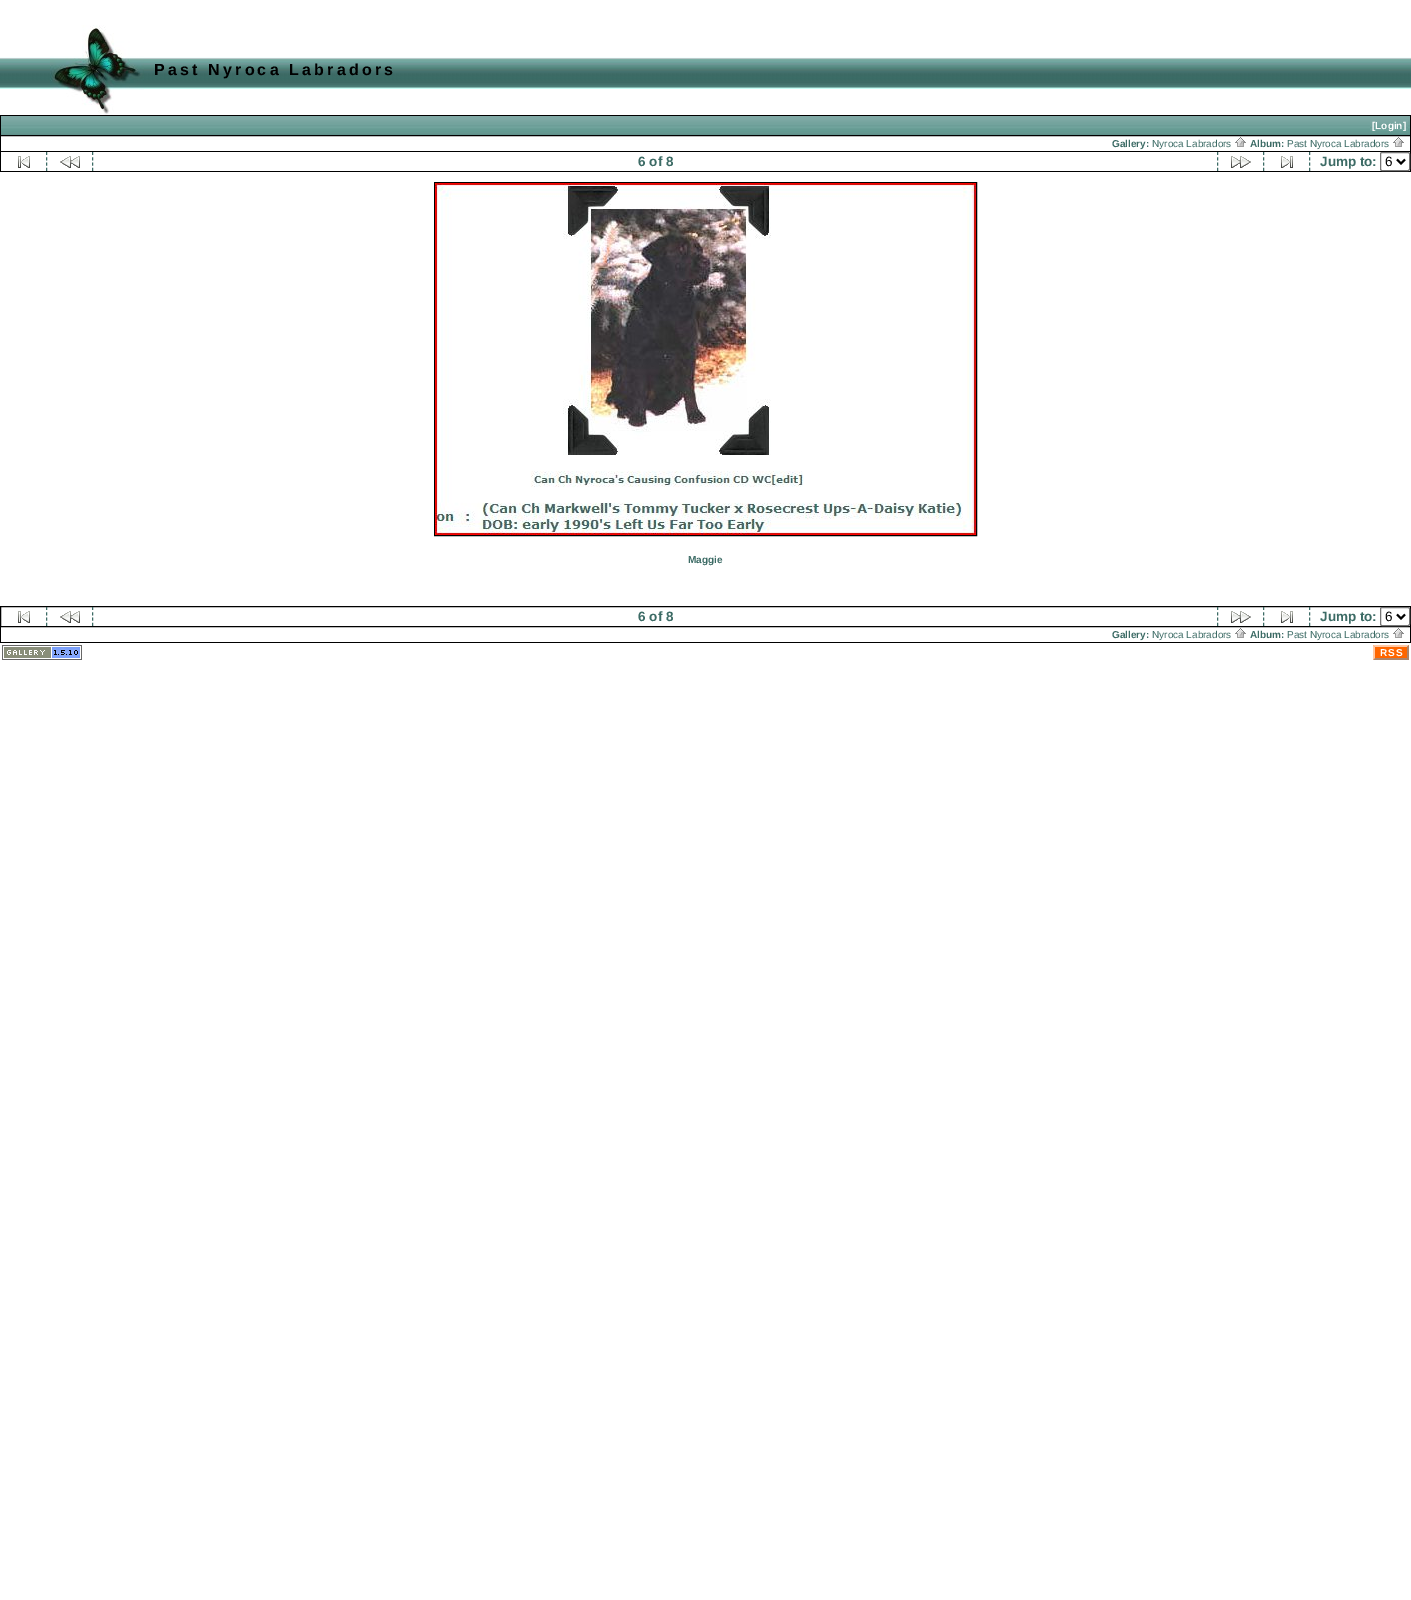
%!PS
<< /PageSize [1411 1600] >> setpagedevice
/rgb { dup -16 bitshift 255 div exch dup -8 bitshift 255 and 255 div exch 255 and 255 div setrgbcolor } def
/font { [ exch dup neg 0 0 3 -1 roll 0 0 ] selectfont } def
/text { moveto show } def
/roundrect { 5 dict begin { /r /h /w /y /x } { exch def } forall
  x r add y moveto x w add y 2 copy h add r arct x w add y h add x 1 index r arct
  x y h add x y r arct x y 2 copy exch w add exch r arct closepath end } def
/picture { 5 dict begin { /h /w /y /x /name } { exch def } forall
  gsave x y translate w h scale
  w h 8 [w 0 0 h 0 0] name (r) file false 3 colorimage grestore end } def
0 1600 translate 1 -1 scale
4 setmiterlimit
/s1 { /LiberationSans-Bold 10 font 16#FFFFFF rgb } def
/s2 { /LiberationSans-Bold 10 font 16#3C6B65 rgb } def
/s3 { /LiberationSans-Regular 10 font 16#3C6B65 rgb } def
/s4 { /LiberationSans-Bold 13.5 font 16#3C6B65 rgb } def
/s5 { /LiberationSans-Regular 13.5 font 16#000000 rgb } def
16#FFFFFF rgb
0 0 1411 1600 rectfill
(pic1.raw) 0 57 1411 32 picture
(pic2.raw) 50 25 94 90 picture
/LiberationSans-Bold 16 font
16#000000 rgb
154 75 moveto 3.2 0 (Past Nyroca Labradors) ashow
0.5 115.5 1410 20 rectstroke
(pic3.raw) 1 116 123 19 picture
(pic4.raw) 124 116 1286 19 picture
(pic5.raw) 1370 120 38 11 picture
s1
([Login]) 1372 129 text
16#000000 rgb
1410 136 1 36 rectfill
0 151 1411 1 rectfill
0 136 1 16 rectfill
s2
(Gallery:) 1112 147 text
s3
(Nyroca Labradors) 1152 147 text
(pic6.raw) 1235 137 11 10 picture
s2
(Album:) 1250 147 text
s3
(Past Nyroca Labradors) 1287 147 text
(pic6.raw) 1393 137 11 10 picture
16#000000 rgb
0 171 1411 1 rectfill
0 152 1 20 rectfill
16#3C6B65 rgb
[3 2.33] 0 setdash
46.5 152 moveto 46.5 171 lineto 92.5 152 moveto 92.5 171 lineto stroke
(pic7.raw) 18 156 12 12 picture
1217.5 152 moveto 1217.5 171 lineto 1263.5 152 moveto 1263.5 171 lineto stroke
(pic8.raw) 1231 156 20 12 picture
(pic9.raw) 60 156 20 12 picture
s4
(6 of 8) 638 166 text
(pic10.raw) 1281 156 12 12 picture
1309.5 152 moveto 1309.5 171 lineto stroke
(Jump to:) 1320 166 text
16#767676 rgb
[] 0 setdash
1380.5 152.5 29 18 1.5 roundrect stroke
16#000000 rgb
2 setlinewidth
1397 159.5 moveto 1401 163.5 lineto 1405 159.5 lineto stroke
s5
(6) 1385 166 text
1 setlinewidth
434.5 182.5 542 353 rectstroke
(pic11.raw) 435 183 541 352 picture
s2
(Maggie) 688 563 text
16#000000 rgb
0.5 606.5 1410 20 rectstroke
16#3C6B65 rgb
[3 2.33] 0 setdash
46.5 607 moveto 46.5 626 lineto 92.5 607 moveto 92.5 626 lineto stroke
(pic7.raw) 18 611 12 12 picture
1217.5 607 moveto 1217.5 626 lineto 1263.5 607 moveto 1263.5 626 lineto stroke
(pic8.raw) 1231 611 20 12 picture
(pic9.raw) 60 611 20 12 picture
s4
(6 of 8) 638 621 text
(pic10.raw) 1281 611 12 12 picture
1309.5 607 moveto 1309.5 626 lineto stroke
(Jump to:) 1320 621 text
16#767676 rgb
[] 0 setdash
1380.5 607.5 29 18 1.5 roundrect stroke
16#000000 rgb
2 setlinewidth
1397 614.5 moveto 1401 618.5 lineto 1405 614.5 lineto stroke
s5
(6) 1385 621 text
1410 627 1 16 rectfill
0 642 1411 1 rectfill
0 627 1 16 rectfill
s2
(Gallery:) 1112 638 text
s3
(Nyroca Labradors) 1152 638 text
(pic6.raw) 1235 628 11 10 picture
s2
(Album:) 1250 638 text
s3
(Past Nyroca Labradors) 1287 638 text
(pic6.raw) 1393 628 11 10 picture
(pic12.raw) 2 645 80 15 picture
16#FF6600 rgb
1373 645 36 15 rectfill
/LiberationSans-Bold 10 font
16#FFFFFF rgb
1380 656 moveto 1 0 (RSS) ashow
16#FFC8A4 rgb
1373 645 moveto 1409 645 lineto 1407 647 lineto 1375 647 lineto closepath fill
16#AA856D rgb
1409 645 moveto 1409 660 lineto 1407 658 lineto 1407 647 lineto closepath fill
1409 660 moveto 1373 660 lineto 1375 658 lineto 1407 658 lineto closepath fill
16#FFC8A4 rgb
1373 660 moveto 1373 645 lineto 1375 647 lineto 1375 658 lineto closepath fill
showpage
